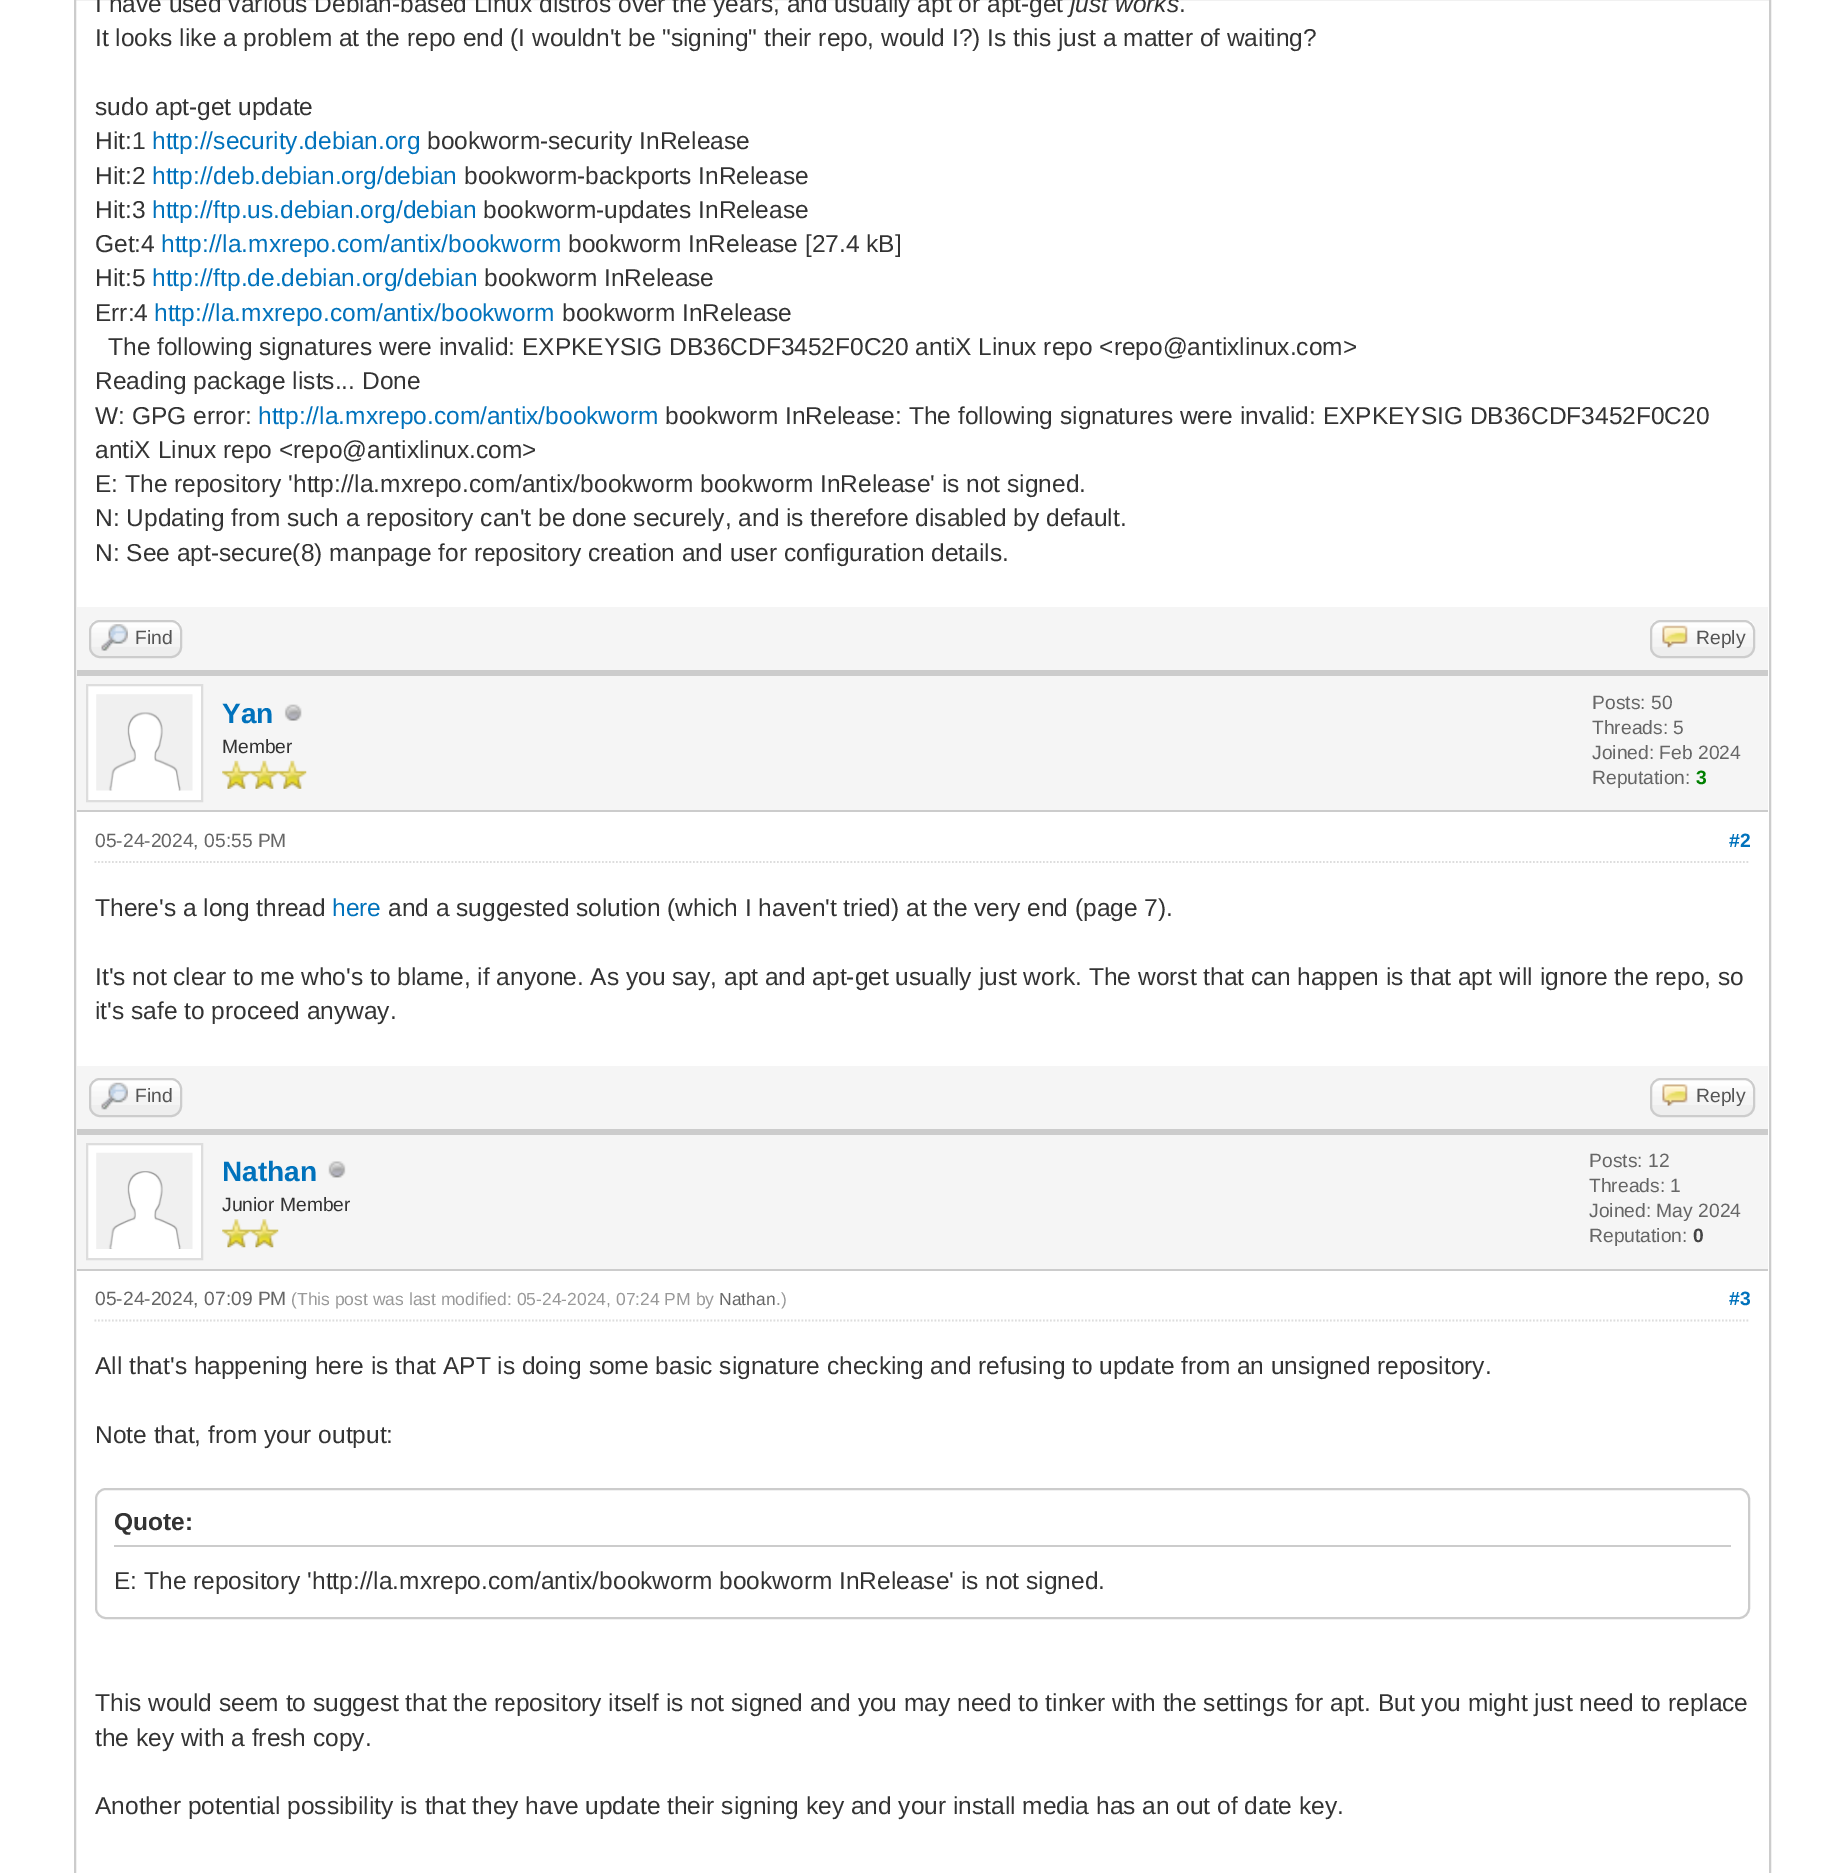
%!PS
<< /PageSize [1844 1873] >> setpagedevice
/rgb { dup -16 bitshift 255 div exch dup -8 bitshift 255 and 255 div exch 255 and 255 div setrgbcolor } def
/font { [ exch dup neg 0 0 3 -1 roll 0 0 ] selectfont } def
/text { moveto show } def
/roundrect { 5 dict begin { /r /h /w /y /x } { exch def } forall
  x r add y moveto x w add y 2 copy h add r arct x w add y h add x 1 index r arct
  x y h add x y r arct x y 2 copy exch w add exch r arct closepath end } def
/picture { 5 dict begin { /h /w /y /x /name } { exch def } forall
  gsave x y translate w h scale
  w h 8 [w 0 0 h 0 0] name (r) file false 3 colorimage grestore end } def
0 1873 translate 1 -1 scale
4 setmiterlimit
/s1 { /LiberationSans-Regular 24.5 font 16#333333 rgb } def
/s2 { /LiberationSans-Italic 24.5 font 16#333333 rgb } def
/s3 { /LiberationSans-Regular 24.5 font 16#0072BC rgb } def
/s4 { /LiberationSans-Regular 19.25 font 16#555555 rgb } def
/s5 { /LiberationSans-Bold 28 font 16#0072BC rgb } def
/s6 { /LiberationSans-Regular 19.25 font 16#333333 rgb } def
/s7 { /LiberationSans-Regular 19.25 font 16#666666 rgb } def
/s8 { /LiberationSans-Bold 19.25 font 16#008000 rgb } def
/s9 { /LiberationSans-Bold 19.25 font 16#0072BC rgb } def
/s10 { /LiberationSans-Bold 19.25 font 16#444444 rgb } def
/s11 { /LiberationSans-Regular 17.5 font 16#999999 rgb } def
/s12 { /LiberationSans-Regular 17.5 font 16#666666 rgb } def
/s13 { /LiberationSans-Bold 24.5 font 16#333333 rgb } def
16#FFFFFF rgb
0 0 1844 1873 rectfill
16#CCCCCC rgb
2 setlinewidth
75 -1 1695 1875 rectstroke
s1
(I have used various Debian-based Linux distros over the years, and usually apt or apt-get) 95 12 text
s2
(just works) 1070 12 text
s1
(.) 1179 12 text
(It looks like a problem at the repo end \(I wouldn't be "signing" their repo, would I?\) Is this just a matter of waiting?) 95 46 text
(sudo apt-get update) 95 115 text
(Hit:1) 95 149 text
s3
(http://security.debian.org) 152 149 text
s1
(bookworm-security InRelease) 427 149 text
(Hit:2) 95 184 text
s3
(http://deb.debian.org/debian) 152 184 text
s1
(bookworm-backports InRelease) 464 184 text
(Hit:3) 95 218 text
s3
(http://ftp.us.debian.org/debian) 152 218 text
s1
(bookworm-updates InRelease) 483 218 text
(Get:4) 95 252 text
s3
(http://la.mxrepo.com/antix/bookworm) 161 252 text
s1
(bookworm InRelease [27.4 kB]) 568 252 text
(Hit:5) 95 286 text
s3
(http://ftp.de.debian.org/debian) 152 286 text
s1
(bookworm InRelease) 484 286 text
(Err:4) 95 321 text
s3
(http://la.mxrepo.com/antix/bookworm) 154 321 text
s1
(bookworm InRelease) 562 321 text
(The following signatures were invalid: EXPKEYSIG DB36CDF3452F0C20 antiX Linux repo <repo@antixlinux.com>) 108 355 text
(Reading package lists... Done) 95 389 text
(W: GPG error:) 95 424 text
s3
(http://la.mxrepo.com/antix/bookworm) 258 424 text
s1
(bookworm InRelease: The following signatures were invalid: EXPKEYSIG DB36CDF3452F0C20) 665 424 text
(antiX Linux repo <repo@antixlinux.com>) 95 458 text
(E: The repository 'http://la.mxrepo.com/antix/bookworm bookworm InRelease' is not signed.) 95 492 text
(N: Updating from such a repository can't be done securely, and is therefore disabled by default.) 95 526 text
(N: See apt-secure\(8\) manpage for repository creation and user configuration details.) 95 561 text
16#F5F5F5 rgb
77 607 1691 63 rectfill
16#CCCCCC rgb
77 670 1691 6 rectfill
16#EEEEEE rgb
89 620 93 38 11 roundrect fill
(pic1.raw) 89 620 93 27 picture
16#CCCCCC rgb
90 621 91 36 10 roundrect stroke
(pic2.raw) 101 624 27 27 picture
s4
(Find) 135 644 text
16#EEEEEE rgb
1650 620 105 38 11 roundrect fill
(pic3.raw) 1650 620 105 27 picture
16#CCCCCC rgb
1651 621 103 36 10 roundrect stroke
(pic4.raw) 1662 625 26 23 picture
s4
(Reply) 1696 644 text
16#F5F5F5 rgb
77 676 1691 134 rectfill
16#CCCCCC rgb
77 810 1691 2 rectfill
16#FFFFFF rgb
87 685 moveto 202 685 lineto 202 801 lineto 87 801 lineto closepath gsave fill grestore
16#DDDDDD rgb
stroke
(pic5.raw) 96 694 97 97 picture
s5
(Yan) 222 723 text
(pic6.raw) 284 704 18 17 picture
s6
(Member) 222 753 text
(pic7.raw) 222 760 29 29 picture
(pic8.raw) 250 760 29 29 picture
(pic8.raw) 278 760 29 29 picture
s7
(Posts: 50) 1592 709 text
(Threads: 5) 1592 734 text
(Joined: Feb 2024) 1592 759 text
(Reputation:) 1592 784 text
s8
(3) 1696 784 text
16#DDDDDD rgb
1.8 setlinewidth
[1.75 1.75] 0 setdash
94.5 862 moveto 1750 862 lineto stroke
s7
(05-24-2024, 05:55 PM) 95 847 text
s9
(#2) 1729 847 text
s1
(There's a long thread) 95 916 text
s3
(here) 332 916 text
s1
(and a suggested solution \(which I haven't tried\) at the very end \(page 7\).) 388 916 text
(It's not clear to me who's to blame, if anyone. As you say, apt and apt-get usually just work. The worst that can happen is that apt will ignore the repo, so) 95 985 text
(it's safe to proceed anyway.) 95 1019 text
16#F5F5F5 rgb
77 1066 1691 63 rectfill
16#CCCCCC rgb
77 1129 1691 6 rectfill
16#EEEEEE rgb
89 1078 93 39 11 roundrect fill
(pic9.raw) 89 1079 93 26 picture
16#CCCCCC rgb
2 setlinewidth
[] 0 setdash
90 1079 91 37 10 roundrect stroke
(pic10.raw) 101 1082 27 28 picture
s4
(Find) 135 1102 text
16#EEEEEE rgb
1650 1078 105 39 11 roundrect fill
(pic11.raw) 1650 1079 105 26 picture
16#CCCCCC rgb
1651 1079 103 37 10 roundrect stroke
(pic12.raw) 1662 1084 26 22 picture
s4
(Reply) 1696 1102 text
16#F5F5F5 rgb
77 1135 1691 134 rectfill
16#CCCCCC rgb
77 1269 1691 2 rectfill
16#FFFFFF rgb
87 1144 moveto 202 1144 lineto 202 1259 lineto 87 1259 lineto closepath gsave fill grestore
16#DDDDDD rgb
stroke
(pic13.raw) 96 1152 97 97 picture
s5
(Nathan) 222 1181 text
(pic14.raw) 328 1161 18 17 picture
s6
(Junior Member) 222 1211 text
(pic15.raw) 222 1219 29 29 picture
(pic16.raw) 250 1219 29 29 picture
s7
(Posts: 12) 1589 1167 text
(Threads: 1) 1589 1192 text
(Joined: May 2024) 1589 1217 text
(Reputation:) 1589 1242 text
s10
(0) 1693 1242 text
16#DDDDDD rgb
1.8 setlinewidth
[1.75 1.75] 0 setdash
94.5 1320.5 moveto 1750 1320.5 lineto stroke
s7
(05-24-2024, 07:09 PM) 95 1305 text
s11
(\(This post was last modified: 05-24-2024, 07:24 PM by) 291 1305 text
s12
(Nathan) 719 1305 text
s11
(.\)) 776 1305 text
s9
(#3) 1729 1305 text
s1
(All that's happening here is that APT is doing some basic signature checking and refusing to update from an unsigned repository.) 95 1374 text
(Note that, from your output:) 95 1443 text
16#CCCCCC rgb
2 setlinewidth
[] 0 setdash
96 1489 1653 129 10 roundrect stroke
114 1545 1617 2 rectfill
s13
(Quote:) 114 1530 text
s1
(E: The repository 'http://la.mxrepo.com/antix/bookworm bookworm InRelease' is not signed.) 114 1589 text
(This would seem to suggest that the repository itself is not signed and you may need to tinker with the settings for apt. But you might just need to replace) 95 1711 text
(the key with a fresh copy.) 95 1746 text
(Another potential possibility is that they have update their signing key and your install media has an out of date key.) 95 1814 text
showpage
